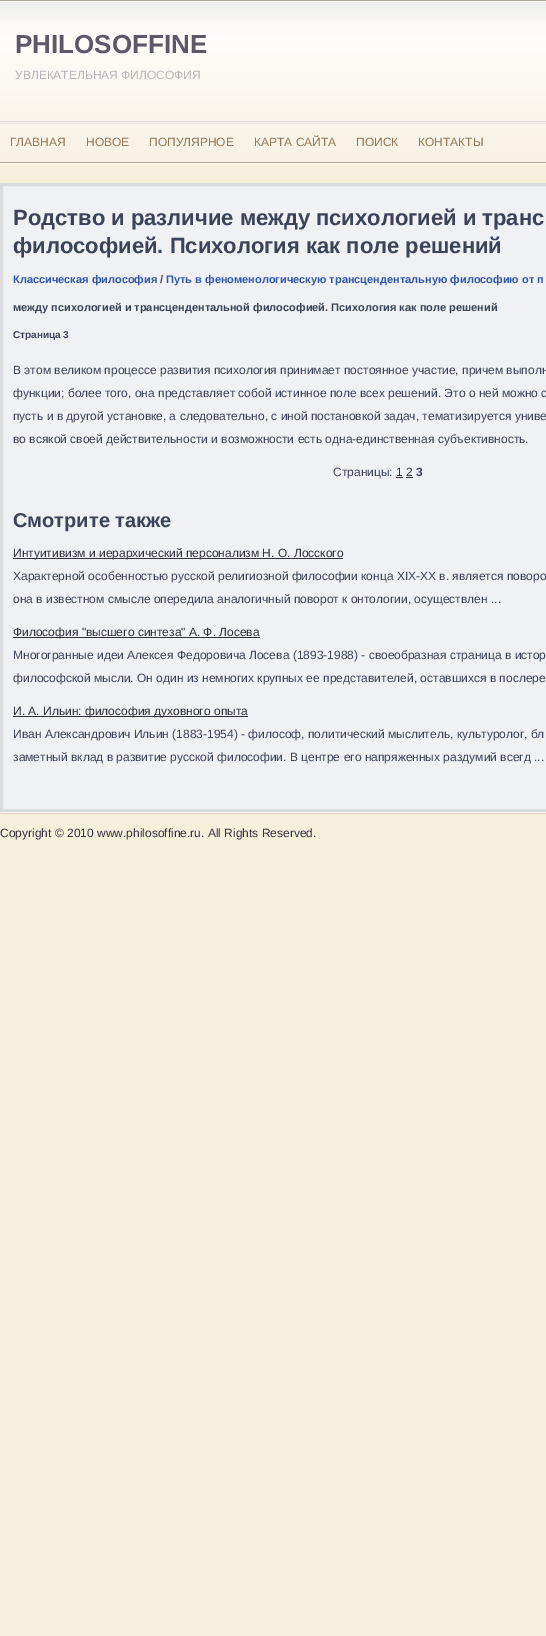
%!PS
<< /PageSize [546 1636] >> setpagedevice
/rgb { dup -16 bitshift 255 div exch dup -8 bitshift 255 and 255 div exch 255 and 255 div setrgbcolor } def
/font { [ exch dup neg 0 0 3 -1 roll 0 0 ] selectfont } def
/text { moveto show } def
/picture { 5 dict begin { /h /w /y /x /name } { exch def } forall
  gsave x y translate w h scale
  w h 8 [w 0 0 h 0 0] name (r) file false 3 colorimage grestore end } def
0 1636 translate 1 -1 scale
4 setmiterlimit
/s1 { /LiberationSans-Bold 26 font 16#5C5867 rgb } def
/s2 { /LiberationSans-Regular 12 font 16#B8B5BC rgb } def
/s3 { /LiberationSans-Regular 12 font 16#8F7758 rgb } def
/s4 { /LiberationSans-Bold 22 font 16#3A4357 rgb } def
/s5 { /LiberationSans-Bold 11 font 16#2F58AA rgb } def
/s6 { /LiberationSans-Bold 11 font 16#3A4357 rgb } def
/s7 { /LiberationSans-Bold 10 font 16#3A4357 rgb } def
/s8 { /LiberationSans-Regular 12 font 16#3A4357 rgb } def
/s9 { /LiberationSans-Regular 12 font 16#34303F rgb } def
/s10 { /LiberationSans-Bold 12 font 16#3A4357 rgb } def
/s11 { /LiberationSans-Bold 20 font 16#3A4357 rgb } def
16#F4F0DC rgb
0 0 546 1636 rectfill
(pic1.raw) 0 0 546 164 picture
s1
(PHILOSOFFINE) 15 53 text
s2
(УВЛЕКАТЕЛЬНАЯ ФИЛОСОФИЯ) 15 79 text
s3
(ГЛАВНАЯ) 10 146 text
(НОВОЕ) 86 146 text
(ПОПУЛЯРНОЕ) 149 146 text
(КАРТА САЙТА) 254 146 text
(ПОИСК) 356 146 text
(КОНТАКТЫ) 418 146 text
16#EFF1F5 rgb
1.5 184.5 moveto 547.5 184.5 lineto 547.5 810.5 lineto 1.5 810.5 lineto closepath gsave fill grestore
16#DADBDD rgb
3 setlinewidth
stroke
s4
(Родство и различие между психологией и транс) 13 225 text
(философией. Психология как поле решений) 13 253 text
s5
(Классическая философия) 13 283 text
s6
(/) 160 283 text
s5
(Путь в феноменологическую трансцендентальную философию от п) 166 283 text
s6
(между психологией и трансцендентальной философией. Психология как поле решений) 13 311 text
s7
(Страница 3) 13 338 text
s8
(В этом великом процессе развития психология принимает постоянное участие, причем выполн) 13 374 text
(функции; более того, она представляет собой истинное поле всех решений. Это о ней можно с) 13 397 text
(пусть и в другой установке, а следовательно, с иной постановкой задач, тематизируется униве) 13 420 text
(во всякой своей действительности и возможности есть одна-единственная субъективность.) 13 443 text
(Страницы:) 333 476 text
s9
(1 2) 396 476 text
396 477 7 1 rectfill
s10
(3) 416 476 text
16#34303F rgb
406 477 7 1 rectfill
s11
(Смотрите также) 13 527 text
16#34303F rgb
13 558 330 1 rectfill
s9
(Интуитивизм и иерархический персонализм Н. О. Лосского) 13 557 text
s8
(Характерной особенностью русской религиозной философии конца XIX-XX в. является поворо) 13 580 text
(она в известном смысле опередила аналогичный поворот к онтологии, осуществлен ...) 13 603 text
16#34303F rgb
13 637 247 1 rectfill
(Философия "высшего синтеза" А. Ф. Лосева) 13 636 text
s8
(Многогранные идеи Алексея Федоровича Лосева \(1893-1988\) - своеобразная страница в истор) 13 659 text
(философской мысли. Он один из немногих крупных ее представителей, оставшихся в послере) 13 682 text
16#34303F rgb
13 716 235 1 rectfill
(И. А. Ильин: философия духовного опыта) 13 715 text
s8
(Иван Александрович Ильин \(1883-1954\) - философ, политический мыслитель, культуролог, бл) 13 738 text
(заметный вклад в развитие русской философии. В центре его напряженных раздумий всегд ...) 13 761 text
(pic2.raw) 0 812 546 2 picture
s9
(Copyright © 2010 www.philosoffine.ru. All Rights Reserved.) 0 837 text
showpage
